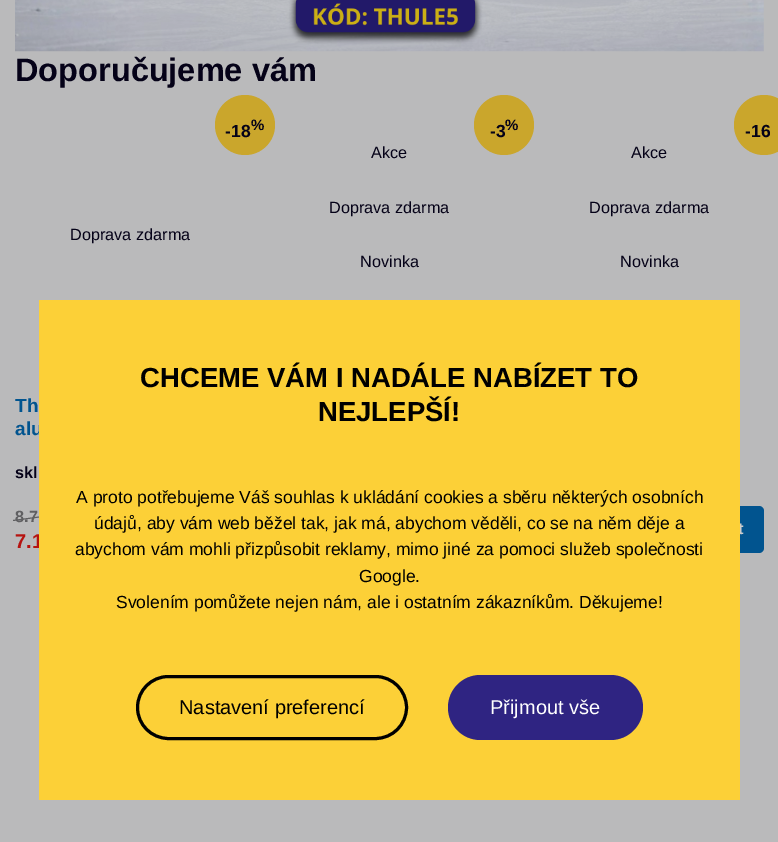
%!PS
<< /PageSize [778 842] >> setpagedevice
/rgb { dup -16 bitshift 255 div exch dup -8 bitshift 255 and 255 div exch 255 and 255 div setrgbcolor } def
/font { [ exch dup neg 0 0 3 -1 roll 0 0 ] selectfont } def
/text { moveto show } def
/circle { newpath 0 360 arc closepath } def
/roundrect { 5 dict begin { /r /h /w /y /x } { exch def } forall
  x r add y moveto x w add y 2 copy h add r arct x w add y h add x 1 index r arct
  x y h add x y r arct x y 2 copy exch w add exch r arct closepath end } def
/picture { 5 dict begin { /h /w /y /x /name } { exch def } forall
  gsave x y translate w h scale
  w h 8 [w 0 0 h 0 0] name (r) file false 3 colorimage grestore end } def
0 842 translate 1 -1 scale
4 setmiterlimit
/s1 { /LiberationSans-Bold 32.5 font 16#050218 rgb } def
/s2 { /LiberationSans-Bold 17.5 font 16#050218 rgb } def
/s3 { /LiberationSans-Bold 15 font 16#050218 rgb } def
/s4 { /LiberationSans-Regular 16.25 font 16#050218 rgb } def
/s5 { /LiberationSans-Bold 19 font 16#01548F rgb } def
/s6 { /LiberationSans-Bold 16.25 font 16#050218 rgb } def
/s7 { /LiberationSans-Bold 16.25 font 16#606062 rgb } def
/s8 { /LiberationSans-Bold 20 font 16#B61310 rgb } def
/s9 { /LiberationSans-Bold 16.25 font 16#CCCCCC rgb } def
/s10 { /LiberationSans-Bold 27.5 font 16#000000 rgb } def
/s11 { /LiberationSans-Regular 17.5 font 16#000000 rgb } def
/s12 { /LiberationSans-Regular 20 font 16#000000 rgb } def
/s13 { /LiberationSans-Regular 20 font 16#FFFFFF rgb } def
16#BABABB rgb
0 0 778 842 rectfill
(pic1.raw) 15 0 749 52 picture
s1
(Doporučujeme vám) 15 81 text
16#CAA62C rgb
245 125 30 circle fill
s2
(-18) 225 137 text
s3
(%) 251 130 text
s4
(Doprava zdarma) 70 240 text
s5
(Th) 15 412 text
(alu) 15 435 text
s6
(skl) 15 478 text
s7
(8.7) 15 522 text
13 520 moveto 58 514 lineto 58 515 lineto 13 521 lineto closepath fill
s8
(7.1) 15 548 text
16#CAA62C rgb
504 125 30 circle fill
s2
(-3) 490 137 text
s3
(%) 505 130 text
s4
(Akce) 371 158 text
(Doprava zdarma) 329 213 text
(Novinka) 360 267 text
16#CAA62C rgb
764 125 30 circle fill
s2
(-16) 745 137 text
s4
(Akce) 631 158 text
(Doprava zdarma) 589 213 text
(Novinka) 620 267 text
16#01548F rgb
673 506 91 47 5 roundrect fill
s9
(t) 738 534 text
16#FCD037 rgb
39 300 701 500 rectfill
s10
(CHCEME VÁM I NADÁLE NABÍZET TO) 140 387 text
(NEJLEPŠÍ!) 318 421 text
s11
(A proto potřebujeme Váš souhlas k ukládání cookies a sběru některých osobních) 76 503 text
(údajů, aby vám web běžel tak, jak má, abychom věděli, co se na něm děje a) 94 529 text
(abychom vám mohli přizpůsobit reklamy, mimo jiné za pomoci služeb společnosti) 75 555 text
(Google.) 359 582 text
(Svolením pomůžete nejen nám, ale i ostatním zákazníkům. Děkujeme!) 116 608 text
3 setlinewidth
137.5 676.5 269 62 31 roundrect stroke
s12
(Nastavení preferencí) 179 714 text
16#2F2482 rgb
448 675 195 65 32.5 roundrect fill
s13
(Přijmout vše) 490 714 text
showpage
